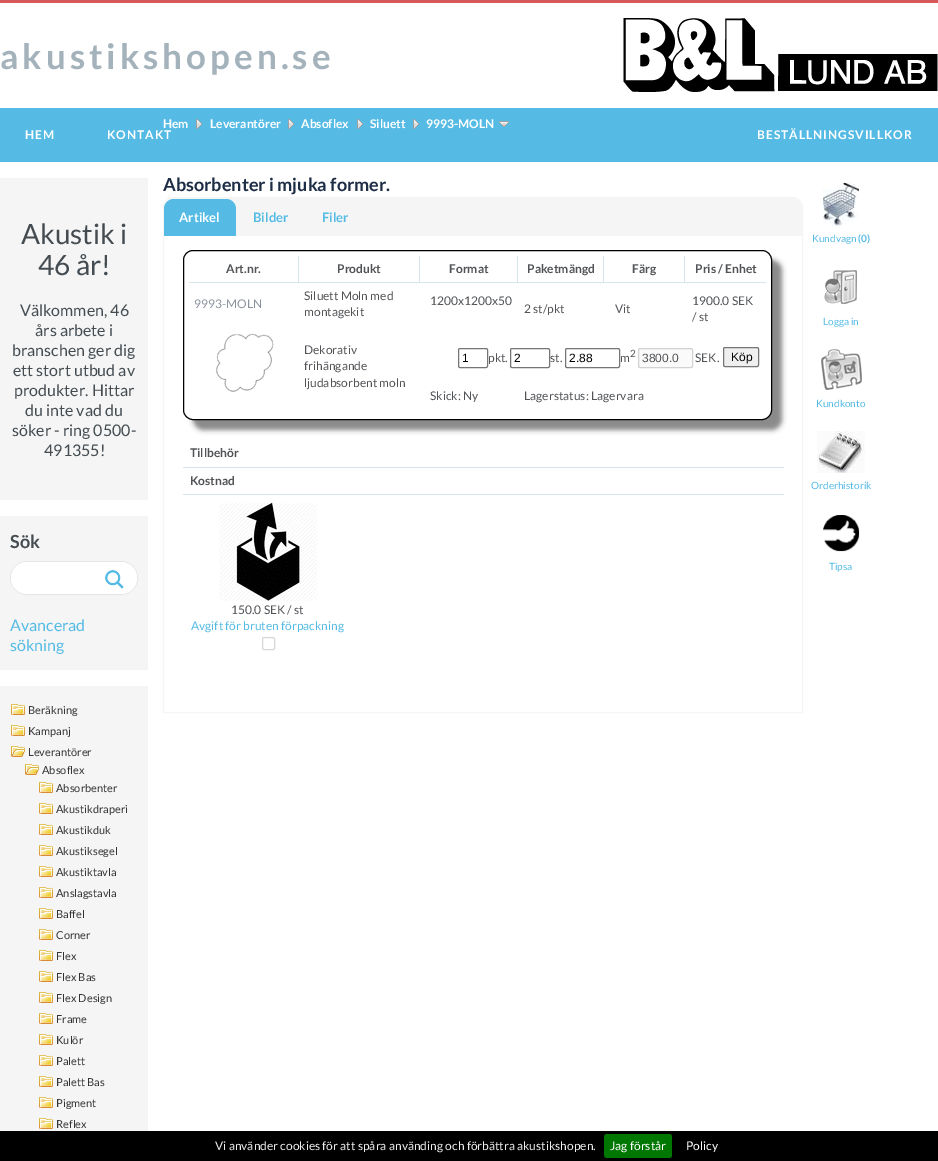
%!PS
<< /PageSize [938 1161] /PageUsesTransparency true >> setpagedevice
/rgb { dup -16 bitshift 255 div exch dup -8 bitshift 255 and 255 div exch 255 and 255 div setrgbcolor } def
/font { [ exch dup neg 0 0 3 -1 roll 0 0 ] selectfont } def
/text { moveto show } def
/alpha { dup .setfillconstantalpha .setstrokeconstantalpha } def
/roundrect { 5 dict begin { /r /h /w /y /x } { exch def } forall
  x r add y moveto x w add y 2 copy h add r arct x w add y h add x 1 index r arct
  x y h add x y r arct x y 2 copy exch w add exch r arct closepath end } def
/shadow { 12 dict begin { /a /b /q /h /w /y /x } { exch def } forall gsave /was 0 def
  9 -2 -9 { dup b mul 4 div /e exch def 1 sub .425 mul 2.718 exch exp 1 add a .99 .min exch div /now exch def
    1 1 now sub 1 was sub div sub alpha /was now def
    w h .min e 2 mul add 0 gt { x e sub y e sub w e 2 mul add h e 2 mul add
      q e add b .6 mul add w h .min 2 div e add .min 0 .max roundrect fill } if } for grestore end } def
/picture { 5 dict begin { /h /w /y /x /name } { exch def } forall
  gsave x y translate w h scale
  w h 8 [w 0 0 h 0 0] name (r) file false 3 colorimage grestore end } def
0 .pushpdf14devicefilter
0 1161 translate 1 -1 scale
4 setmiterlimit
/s1 { /Lato-Regular 28 font 16#444C51 rgb } def
/s2 { /Lato-Regular 16 font 16#444C51 rgb } def
/s3 { /Lato-Bold 18 font 16#444C51 rgb } def
/s4 { /Lato-Regular 16 font 16#55BBE5 rgb } def
/s5 { /Lato-Regular 11 font 16#333333 rgb } def
/s6 { /Lato-Bold 12 font 16#FFFFFF rgb } def
/s7 { /Lato-Bold 18 font 16#1D2D45 rgb } def
/s8 { /Lato-Bold 13 font 16#FFFFFF rgb } def
/s9 { /Lato-Bold 13 font 16#55BBE5 rgb } def
/s10 { /Lato-Bold 12 font 16#515356 rgb } def
/s11 { /Lato-Regular 12 font 16#8C939D rgb } def
/s12 { /Lato-Regular 12 font 16#515356 rgb } def
/s13 { /LiberationSans-Regular 12 font 16#000000 rgb } def
/s14 { /Lato-Regular 10 font 16#515356 rgb } def
/s15 { /LiberationSans-Regular 12 font 16#515356 rgb } def
/s16 { /Lato-Regular 12 font 16#55BBE5 rgb } def
/s17 { /Lato-Regular 10 font 16#55BBE5 rgb } def
/s18 { /Lato-Bold 10 font 16#55BBE5 rgb } def
/s19 { /Lato-Regular 12 font 16#EEEEEE rgb } def
/s20 { /Lato-Regular 12 font 16#FFFFFF rgb } def
16#FFFFFF rgb
0 0 938 1161 rectfill
16#D55959 rgb
0 0 938 3 rectfill
/Lato-Bold 35 font
16#A3B2BB rgb
0 69 moveto 4 0 (akustikshopen.se) ashow
(pic1.raw) 623 18 315 74 picture
16#55BBE5 rgb
0 108 938 54 rectfill
/Lato-Bold 12 font
16#FFFFFF rgb
25 139 moveto 1 0 (HEM) ashow
107 139 moveto 1 0 (KONTAKT) ashow
757 139 moveto 1 0 (BESTÄLLNINGSVILLKOR) ashow
16#F5F5F5 rgb
0 178 148 322 rectfill
s1
(Akustik i) 21 244 text
(46 år!) 38 275 text
s2
(Välkommen, 46) 20 316 text
(års arbete i) 35 336 text
(branschen ger dig) 12 356 text
(ett stort utbud av) 13 376 text
(produkter. Hittar) 14 396 text
(du inte vad du) 25 416 text
(söker - ring 0500-) 12 436 text
(491355!) 44 456 text
16#F5F5F5 rgb
0 516 148 154 rectfill
s3
(Sök) 10 548 text
16#E6E6E6 rgb
10.5 561.5 127 33 16.5 roundrect stroke
16#FFFFFF rgb
11 562 126 32 16 roundrect fill
(pic2.raw) 105 570 19 19 picture
s4
(Avancerad) 10 631 text
(sökning) 10 651 text
16#F5F5F5 rgb
0 686 148 445 rectfill
(pic3.raw) 11 704 14 11 picture
s5
(Beräkning) 28 714 text
(pic3.raw) 11 725 14 11 picture
(Kampanj) 28 735 text
(pic4.raw) 11 746 14 11 picture
(Leverantörer) 28 756 text
(pic4.raw) 25 764 14 11 picture
(Absoflex) 42 774 text
(pic3.raw) 39 782 14 11 picture
(Absorbenter) 56 792 text
(pic3.raw) 39 803 14 11 picture
(Akustikdraperi) 56 813 text
(pic3.raw) 39 824 14 11 picture
(Akustikduk) 56 834 text
(pic3.raw) 39 845 14 11 picture
(Akustiksegel) 56 855 text
(pic3.raw) 39 866 14 11 picture
(Akustiktavla) 56 876 text
(pic3.raw) 39 887 14 11 picture
(Anslagstavla) 56 897 text
(pic3.raw) 39 908 14 11 picture
(Baffel) 56 918 text
(pic3.raw) 39 929 14 11 picture
(Corner) 56 939 text
(pic3.raw) 39 950 14 11 picture
(Flex) 56 960 text
(pic3.raw) 39 971 14 11 picture
(Flex Bas) 56 981 text
(pic3.raw) 39 992 14 11 picture
(Flex Design) 56 1002 text
(pic3.raw) 39 1013 14 11 picture
(Frame) 56 1023 text
(pic3.raw) 39 1034 14 11 picture
(Kulör) 56 1044 text
(pic3.raw) 39 1055 14 11 picture
(Palett) 56 1065 text
(pic3.raw) 39 1076 14 11 picture
(Palett Bas) 56 1086 text
(pic3.raw) 39 1097 14 11 picture
(Pigment) 56 1107 text
(pic3.raw) 39 1118 14 11 picture
(Reflex) 56 1128 text
s6
(Hem) 163 128 text
(pic5.raw) 196 119 6 10 picture
(Leverantörer) 210 128 text
(pic5.raw) 288 119 6 10 picture
(Absoflex) 301 128 text
(pic5.raw) 357 119 6 10 picture
(Siluett) 370 128 text
(pic5.raw) 413 119 6 10 picture
(9993-MOLN) 426 128 text
(pic6.raw) 499 121 10 6 picture
s7
(Absorbenter i mjuka former.) 163 191 text
16#F5F5F5 rgb
173 197.5 moveto 793 197.5 lineto 798 197.5 802.5 202 802.5 207 curveto 802.5 712.5 lineto 163.5 712.5 lineto 163.5 207 lineto 163.5 202 168 197.5 173 197.5 curveto closepath stroke
174 198 moveto 792 198 lineto 797.5 198 802 202.5 802 208 curveto 802 236 lineto 164 236 lineto 164 208 lineto 164 202.5 168.5 198 174 198 curveto closepath fill
16#55BBE5 rgb
174 199 moveto 226 199 lineto 231.5 199 236 203.5 236 209 curveto 236 236 lineto 164 236 lineto 164 209 lineto 164 203.5 168.5 199 174 199 curveto closepath fill
s8
(Artikel) 179 222 text
s9
(Bilder) 253 222 text
(Filer) 322 222 text
gsave
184 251 moveto 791 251 lineto 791 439 lineto 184 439 lineto closepath 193 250 moveto 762 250 lineto 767.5 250 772 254.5 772 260 curveto 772 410 lineto 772 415.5 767.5 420 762 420 curveto 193 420 lineto 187.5 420 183 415.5 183 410 curveto 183 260 lineto 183 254.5 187.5 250 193 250 curveto closepath eoclip newpath
16#888888 rgb
193 260 589 170 10 2.5 1 shadow
grestore
16#000000 rgb
183.5 250.5 588 169 9.5 roundrect stroke
16#D4E5EC rgb
298 256 1 27 rectfill
189 282 110 1 rectfill
s10
(Art.nr.) 226 273 text
16#D4E5EC rgb
419 256 1 27 rectfill
299 282 121 1 rectfill
s10
(Produkt) 337 273 text
16#D4E5EC rgb
517 256 1 27 rectfill
420 282 98 1 rectfill
s10
(Format) 449 273 text
16#D4E5EC rgb
603 256 1 27 rectfill
518 282 86 1 rectfill
s10
(Paketmängd) 527 273 text
16#D4E5EC rgb
684 256 1 27 rectfill
604 282 162 1 rectfill
s10
(Färg) 632 273 text
(Pris / Enhet) 695 273 text
s11
(9993-MOLN) 194 308 text
s12
(Siluett Moln med) 304 300 text
(montagekit) 304 316 text
(1200x1200x50) 430 305 text
(2 st/pkt) 524 313 text
(Vit) 615 313 text
(1900.0 SEK) 692 305 text
(/ st) 692 321 text
16#767676 rgb
458.5 348.5 29 19 1.5 roundrect stroke
s13
(1) 462 362 text
s12
(pkt.) 488 362 text
16#767676 rgb
510.5 348.5 39 19 1.5 roundrect stroke
s13
(2) 514 362 text
s12
(st.) 550 362 text
16#767676 rgb
565.5 348.5 54 19 1.5 roundrect stroke
s13
(2.88) 569 362 text
s12
(m) 620 362 text
s14
(2) 630 357 text
16#FAFAFA rgb
638.5 348.5 54 19 1.5 roundrect gsave fill grestore
16#D2D2D2 rgb
stroke
s15
(3800.0) 642 362 text
s12
(SEK.) 695 362 text
16#EFEFEF rgb
723.5 347.5 35 19 1.5 roundrect gsave fill grestore
16#767676 rgb
stroke
s13
(Köp) 731 361 text
s12
(Skick: Ny) 430 400 text
(Lagerstatus: Lagervara) 524 400 text
(pic7.raw) 216 333 58 59 picture
(Dekorativ) 304 354 text
(frihängande) 304 370 text
(ljudabsorbent moln) 304 387 text
16#D4E5EC rgb
183 467 601 1 rectfill
s10
(Tillbehör) 190 457 text
16#D4E5EC rgb
183 494 601 1 rectfill
s10
(Kostnad) 190 485 text
(pic8.raw) 219 502 98 99 picture
s12
(150.0 SEK / st) 231 614 text
s16
(Avgift för bruten förpackning) 191 630 text
16#D6D6D6 rgb
262.5 637.5 12 12 1.5 roundrect stroke
(pic9.raw) 823 182 36 44 picture
s17
(Kundvagn) 812 242 text
s18
(\(0\)) 858 242 text
(pic10.raw) 824 270 33 34 picture
s17
(Logga in) 823 325 text
(pic11.raw) 821 349 41 41 picture
(Kundkonto) 816 407 text
(pic12.raw) 817 431 48 42 picture
(Orderhistorik) 811 489 text
(pic13.raw) 823 515 37 37 picture
(Tipsa) 829 570 text
16#000000 rgb
0 1131 938 30 rectfill
s19
(Vi använder cookies för att spåra använding och förbättra akustikshopen.) 215 1150 text
16#007700 rgb
604 1134 68 24 3 roundrect fill
s20
(Jag förstår) 610 1150 text
(Policy) 686 1150 text
.poppdf14devicefilter showpage
